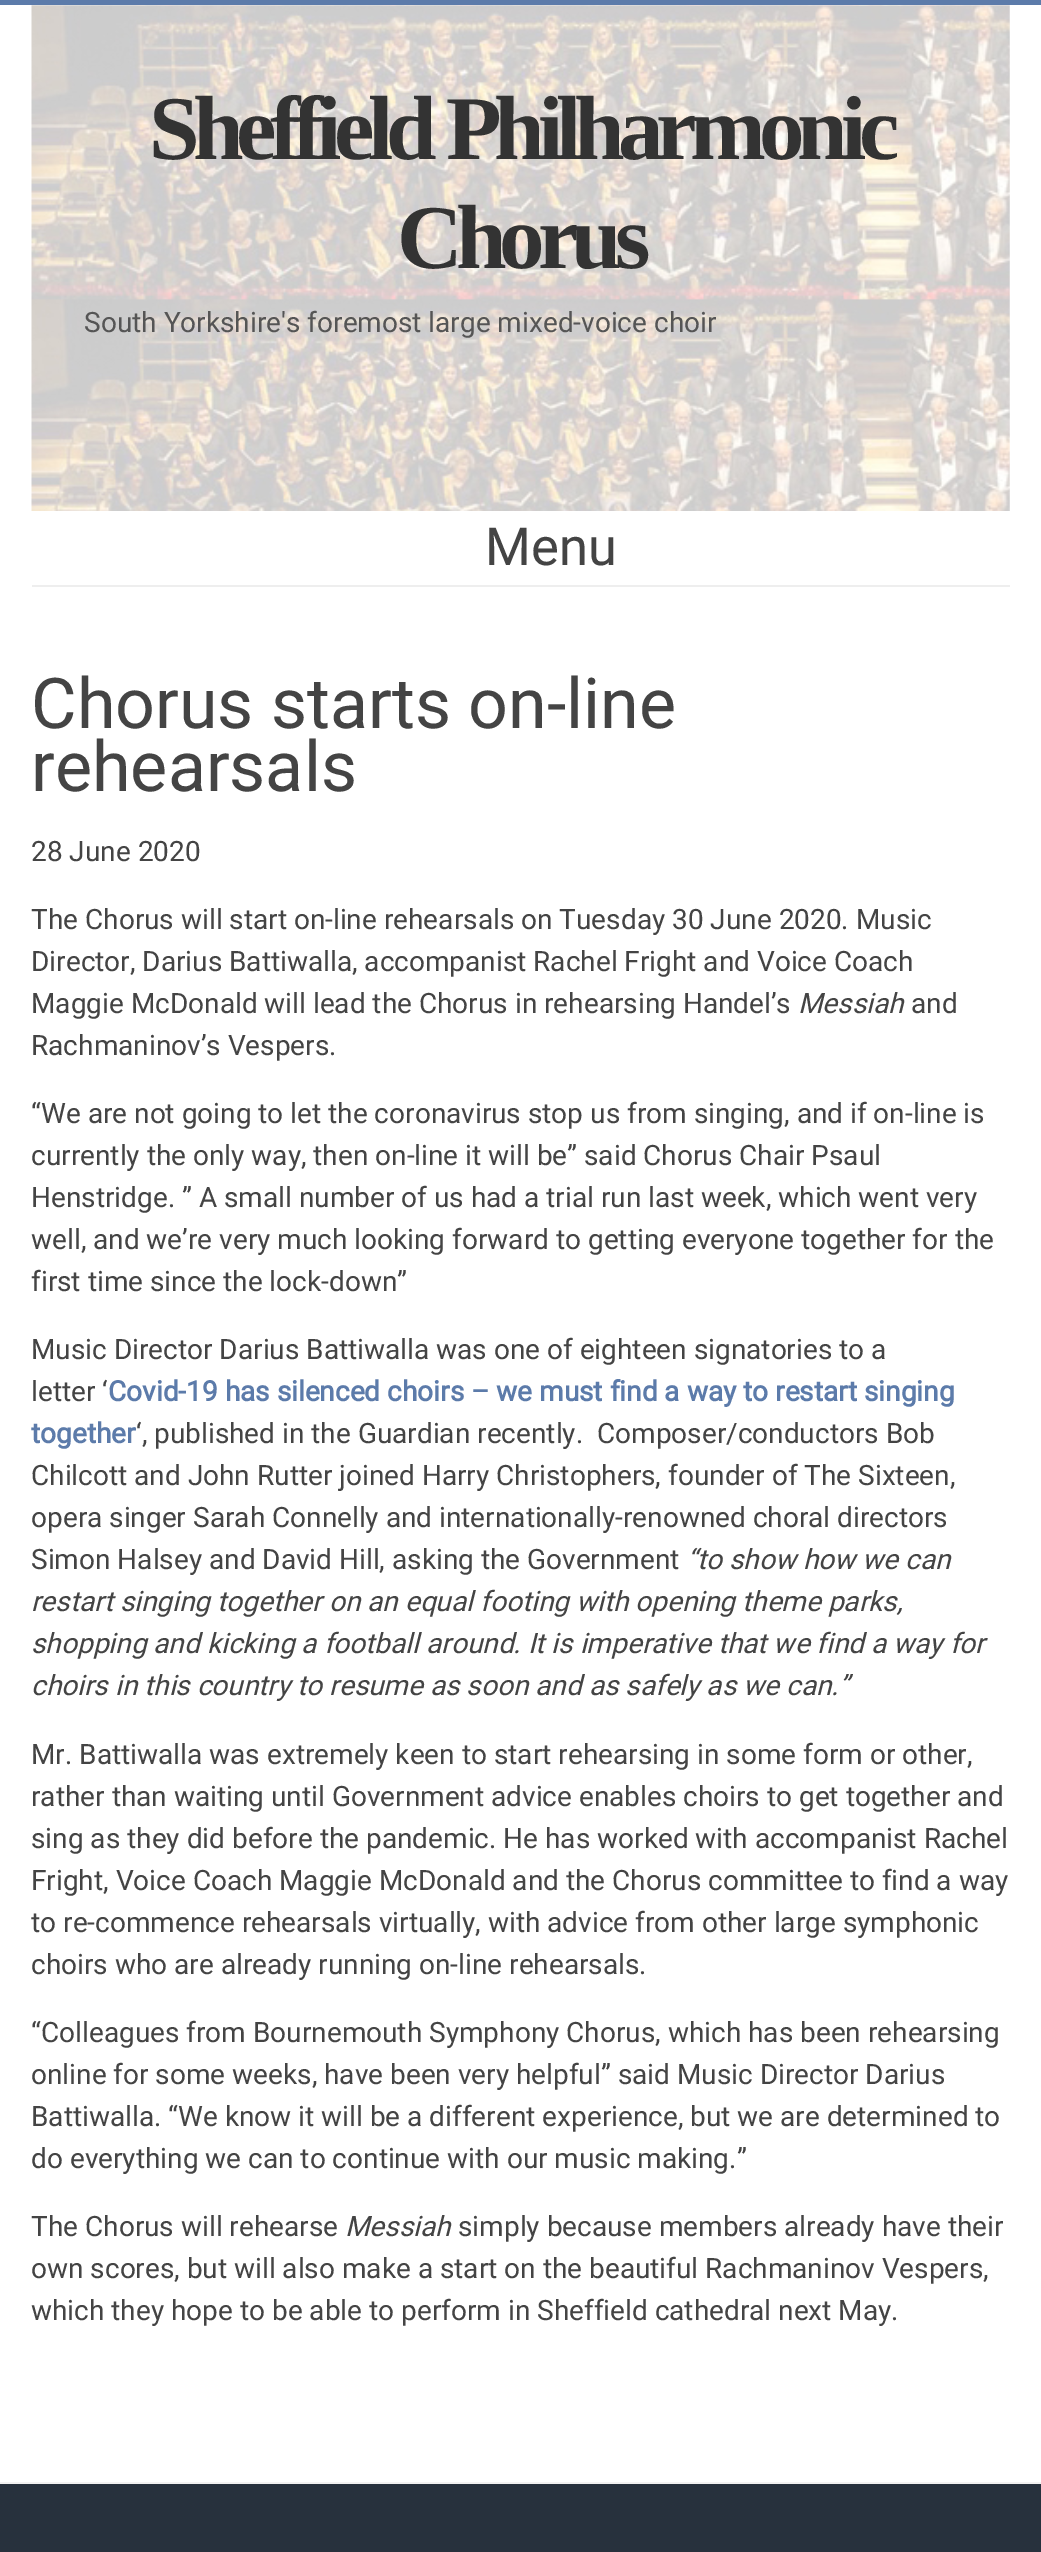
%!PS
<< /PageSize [1041 2552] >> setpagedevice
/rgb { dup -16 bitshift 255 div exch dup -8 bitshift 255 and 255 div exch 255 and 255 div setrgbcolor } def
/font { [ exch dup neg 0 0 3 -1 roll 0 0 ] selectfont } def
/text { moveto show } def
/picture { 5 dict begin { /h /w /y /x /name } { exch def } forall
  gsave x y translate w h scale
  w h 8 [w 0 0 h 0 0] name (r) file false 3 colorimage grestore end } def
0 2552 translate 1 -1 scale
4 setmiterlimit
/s1 { /Roboto-Regular 28 font 16#555555 rgb } def
/s2 { /Roboto-Regular 52.5 font 16#444444 rgb } def
/s3 { /Roboto-Regular 70 font 16#444444 rgb } def
/s4 { /Roboto-Regular 28 font 16#444444 rgb } def
/s5 { /Roboto-Italic 28 font 16#444444 rgb } def
/s6 { /Roboto-Bold 28 font 16#5C7BAA rgb } def
16#FFFFFF rgb
0 0 1041 2552 rectfill
16#5C7BAA rgb
0 0 1041 5 rectfill
(pic1.raw) 31 5 979 506 picture
/LiberationSerif-Bold 91 font
16#333333 rgb
149 159 moveto -7 0 (Sheffield Philharmonic) ashow
397 268 moveto -7 0 (Chorus) ashow
s1
(South Yorkshire's foremost large mixed-voice choir) 84 332 text
16#EEEEEE rgb
32 585 978 2 rectfill
s2
(Menu) 485 565 text
s3
(Chorus starts on-line) 31 728 text
(rehearsals) 31 791 text
s4
(28 June 2020) 31 861 text
(The Chorus will start on-line rehearsals on Tuesday 30 June 2020. Music) 31 929 text
(Director, Darius Battiwalla, accompanist Rachel Fright and Voice Coach) 31 971 text
(Maggie McDonald will lead the Chorus in rehearsing Handel’s) 31 1013 text
s5
(Messiah) 798 1013 text
s4
(and) 911 1013 text
(Rachmaninov’s Vespers.) 31 1055 text
(“We are not going to let the coronavirus stop us from singing, and if on-line is) 31 1123 text
(currently the only way, then on-line it will be” said Chorus Chair Psaul) 31 1165 text
(Henstridge. ” A small number of us had a trial run last week, which went very) 31 1207 text
(well, and we’re very much looking forward to getting everyone together for the) 31 1249 text
(first time since the lock-down”) 31 1291 text
(Music Director Darius Battiwalla was one of eighteen signatories to a) 31 1359 text
(letter ‘) 31 1401 text
s6
(Covid-19 has silenced choirs – we must find a way to restart singing) 108 1401 text
(together) 31 1443 text
s4
(‘, published in the Guardian recently.  Composer/conductors Bob) 136 1443 text
(Chilcott and John Rutter joined Harry Christophers, founder of The Sixteen,) 31 1485 text
(opera singer Sarah Connelly and internationally-renowned choral directors) 31 1527 text
(Simon Halsey and David Hill, asking the Government) 31 1569 text
s5
(“to show how we can) 687 1569 text
(restart singing together on an equal footing with opening theme parks,) 31 1611 text
(shopping and kicking a football around. It is imperative that we find a way for) 31 1653 text
(choirs in this country to resume as soon and as safely as we can.”) 31 1695 text
s4
(Mr. Battiwalla was extremely keen to start rehearsing in some form or other,) 31 1764 text
(rather than waiting until Government advice enables choirs to get together and) 31 1806 text
(sing as they did before the pandemic. He has worked with accompanist Rachel) 31 1848 text
(Fright, Voice Coach Maggie McDonald and the Chorus committee to find a way) 31 1890 text
(to re-commence rehearsals virtually, with advice from other large symphonic) 31 1932 text
(choirs who are already running on-line rehearsals.) 31 1974 text
(“Colleagues from Bournemouth Symphony Chorus, which has been rehearsing) 31 2042 text
(online for some weeks, have been very helpful” said Music Director Darius) 31 2084 text
(Battiwalla. “We know it will be a different experience, but we are determined to) 31 2126 text
(do everything we can to continue with our music making.”) 31 2168 text
(The Chorus will rehearse) 31 2236 text
s5
(Messiah) 345 2236 text
s4
(simply because members already have their) 458 2236 text
(own scores, but will also make a start on the beautiful Rachmaninov Vespers,) 31 2278 text
(which they hope to be able to perform in Sheffield cathedral next May.) 31 2320 text
16#27313D rgb
0 2484 1041 68 rectfill
16#F2F2F2 rgb
0 2482 1041 2 rectfill
showpage
